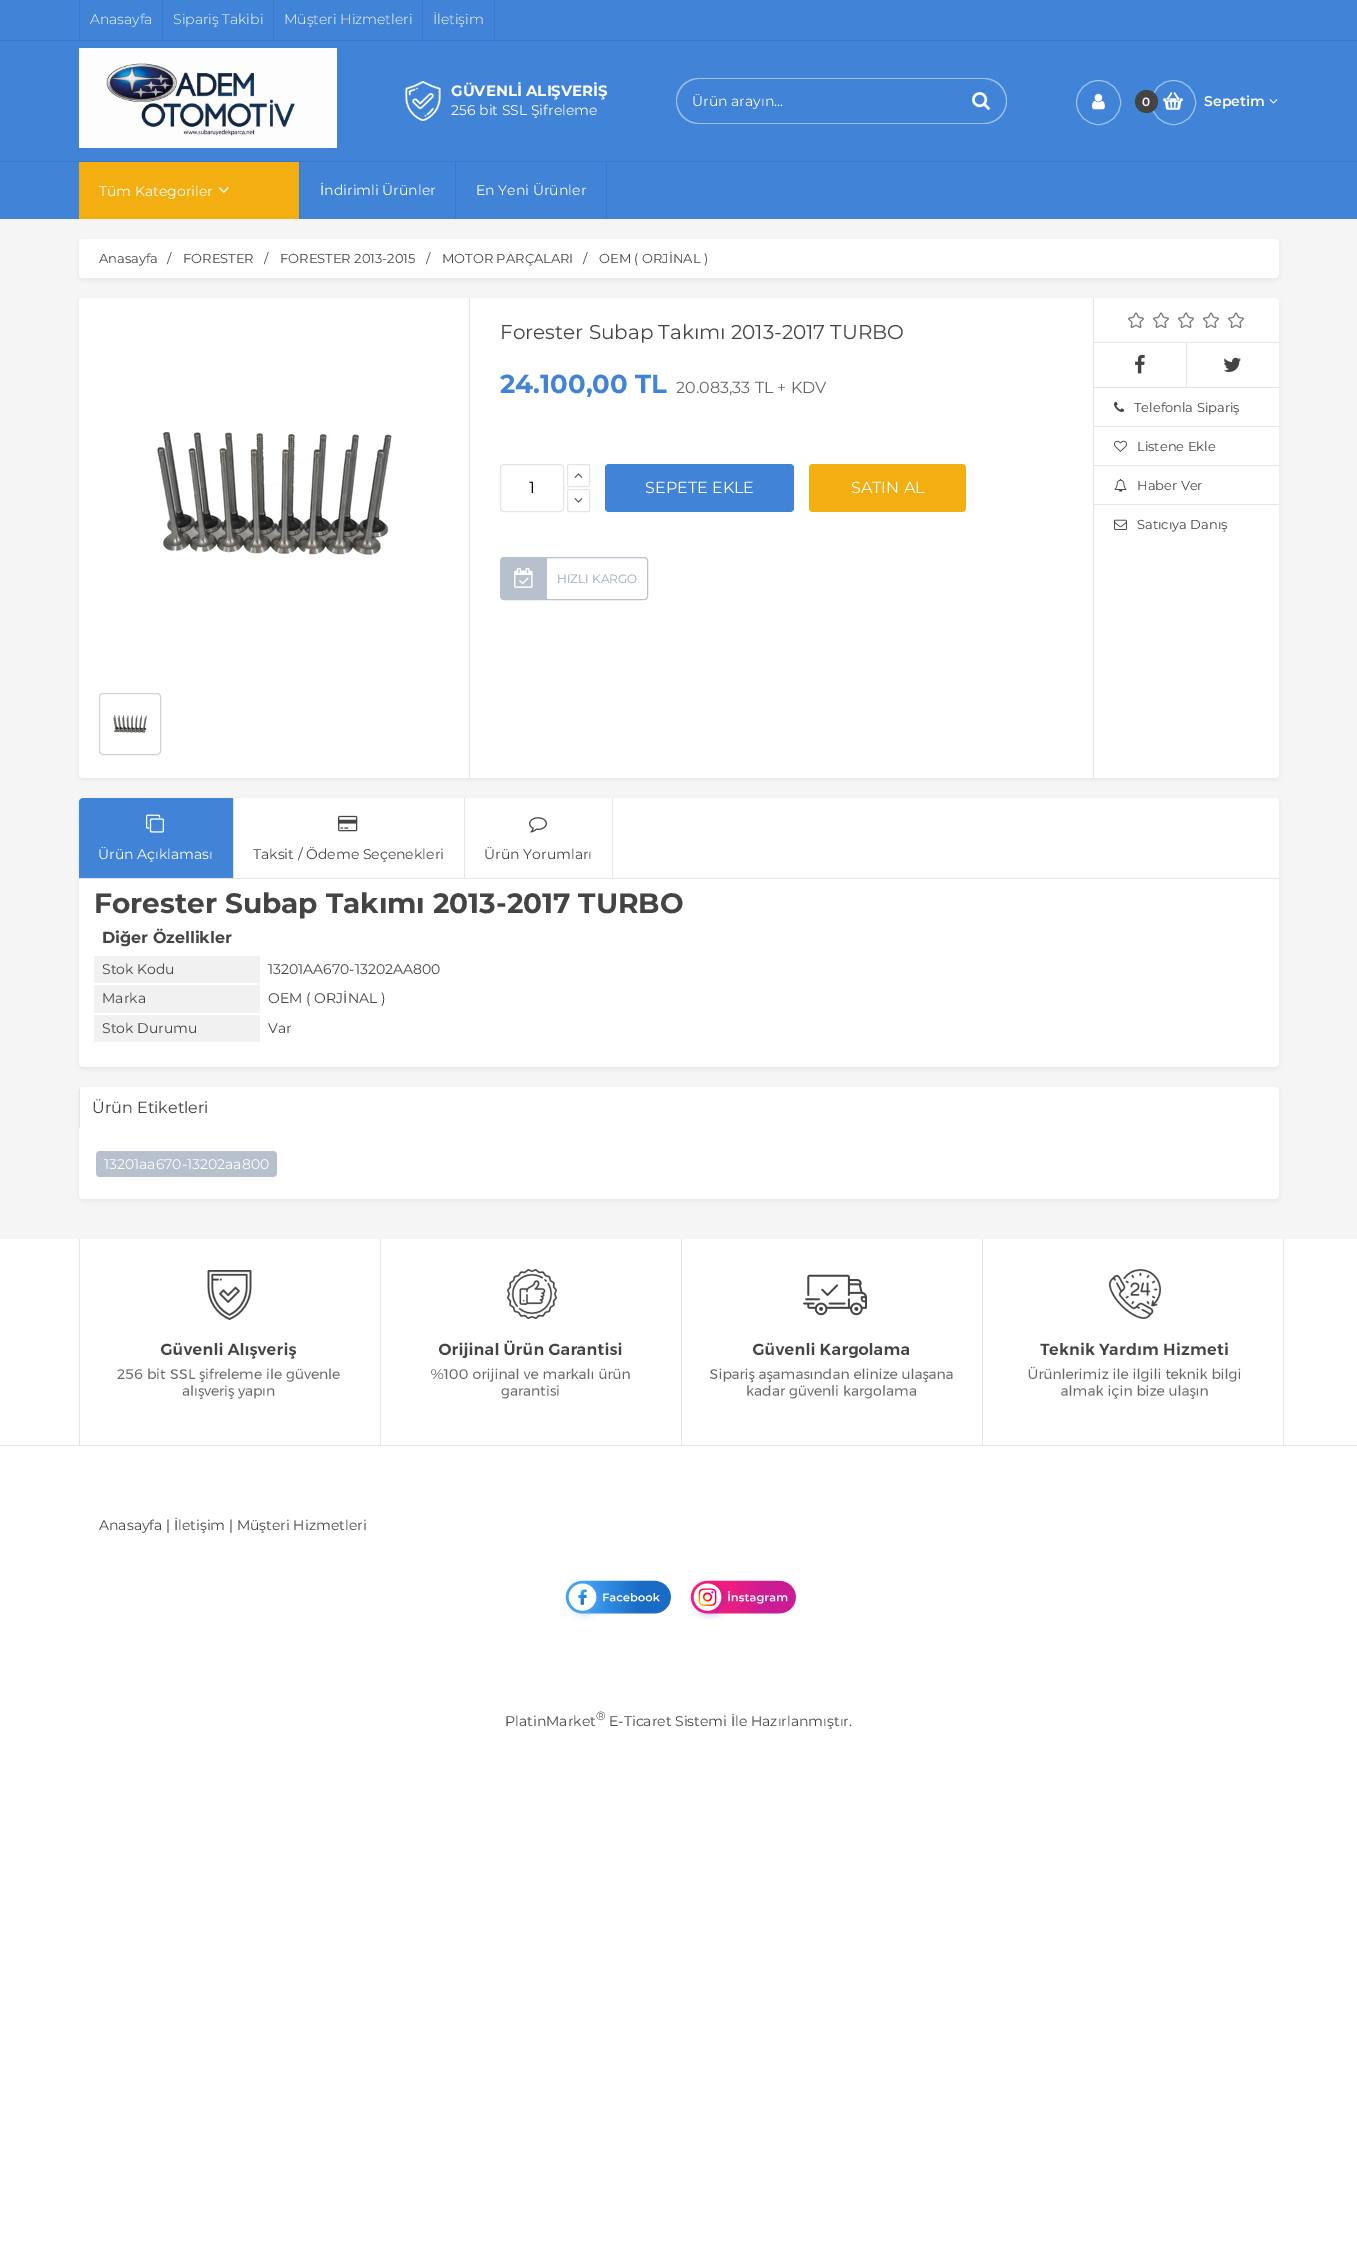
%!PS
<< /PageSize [1357 2258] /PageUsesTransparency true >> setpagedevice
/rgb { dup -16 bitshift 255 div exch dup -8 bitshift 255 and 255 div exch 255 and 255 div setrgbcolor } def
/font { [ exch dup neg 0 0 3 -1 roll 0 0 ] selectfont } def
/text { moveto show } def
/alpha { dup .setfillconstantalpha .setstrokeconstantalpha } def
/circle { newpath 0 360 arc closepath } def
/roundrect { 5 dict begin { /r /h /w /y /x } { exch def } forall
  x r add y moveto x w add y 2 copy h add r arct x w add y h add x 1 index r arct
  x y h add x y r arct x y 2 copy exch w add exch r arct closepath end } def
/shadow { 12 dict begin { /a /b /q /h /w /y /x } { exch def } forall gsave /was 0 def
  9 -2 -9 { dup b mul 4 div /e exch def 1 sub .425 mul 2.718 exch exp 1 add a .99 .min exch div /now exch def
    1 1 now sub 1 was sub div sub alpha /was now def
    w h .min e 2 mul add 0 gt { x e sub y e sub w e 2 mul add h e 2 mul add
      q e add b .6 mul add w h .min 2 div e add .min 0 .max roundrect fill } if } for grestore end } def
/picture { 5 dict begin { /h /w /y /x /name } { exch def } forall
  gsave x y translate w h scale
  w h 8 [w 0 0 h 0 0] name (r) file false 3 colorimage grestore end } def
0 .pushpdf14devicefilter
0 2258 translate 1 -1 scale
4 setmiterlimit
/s1 { /Montserrat-Light 14 font 16#FFFFFF rgb } def
/s2 { /Montserrat-Bold 15 font 16#FFFFFF rgb } def
/s3 { /Montserrat-Regular 14 font 16#FFFFFF rgb } def
/s4 { /Montserrat-SemiBold 12 font 16#FFFFFF rgb } def
/s5 { /Montserrat-SemiBold 14 font 16#FFFFFF rgb } def
/s6 { /Montserrat-Regular 13 font 16#444444 rgb } def
/s7 { /Montserrat-Regular 20 font 16#444444 rgb } def
/s8 { /Montserrat-Bold 26 font 16#4183D7 rgb } def
/s9 { /Montserrat-Regular 16 font 16#666666 rgb } def
/s10 { /Montserrat-Regular 16 font 16#000000 rgb } def
/s11 { /Montserrat-Regular 16 font 16#FFFFFF rgb } def
/s12 { /Montserrat-Regular 12 font 16#98A6B7 rgb } def
/s13 { /Montserrat-Regular 14 font 16#444444 rgb } def
/s14 { /Montserrat-Bold 28 font 16#444444 rgb } def
/s15 { /Montserrat-Bold 16 font 16#444444 rgb } def
/s16 { /Montserrat-Regular 16 font 16#444444 rgb } def
/s17 { /Montserrat-Regular 12 font 16#444444 rgb } def
16#FFFFFF rgb
0 0 1357 2258 rectfill
16#F5F5F5 rgb
0 219 1357 1020 rectfill
16#4183D7 rgb
0 0 1357 219 rectfill
16#3779CE rgb
0 40 1357 1 rectfill
79 0 1 40 rectfill
s1
(Anasayfa) 90 24 text
16#3779CE rgb
162 0 1 40 rectfill
s1
(Sipariş Takibi) 173 24 text
16#3779CE rgb
273 0 1 40 rectfill
s1
(Müşteri Hizmetleri) 284 24 text
16#3779CE rgb
494 0 1 40 rectfill
422 0 1 40 rectfill
s1
(İletişim) 433 24 text
(pic1.raw) 79 48 258 100 picture
(pic2.raw) 405 81 36 40 picture
s2
(GÜVENLİ ALIŞVERİŞ) 451 96 text
s3
(256 bit SSL Şifreleme) 451 115 text
16#9CC1F1 rgb
699 78 moveto 956 78 lineto 956 124 lineto 699 124 lineto 686 124 676 114 676 101 curveto 676 88 686 78 699 78 curveto closepath 699 79 moveto 956 79 lineto 956 123 lineto 699 123 lineto 687 123 677 113 677 101 curveto 677 89 687 79 699 79 curveto closepath eofill
s3
(Ürün arayın...) 692 106 text
(pic3.raw) 972 92 18 18 picture
16#9CC1F1 rgb
956 78 moveto 984 78 lineto 997 78 1007 88 1007 101 curveto 1007 114 997 124 984 124 curveto 956 124 lineto closepath 956 79 moveto 984 79 lineto 996 79 1006 89 1006 101 curveto 1006 113 996 123 984 123 curveto 956 123 lineto closepath eofill
1098.5 102.5 22 circle stroke
(pic4.raw) 1092 93 13 17 picture
(pic5.raw) 1163 92 20 18 picture
1173.5 102.5 22 circle stroke
16#444444 rgb
1146.5 101.5 11.5 circle fill
s4
(0) 1142 106 text
s5
(Sepetim) 1204 106 text
(pic6.raw) 1269 99 9 5 picture
16#3779CE rgb
0 161 1357 1 rectfill
299 162 1 57 rectfill
16#F3AE12 rgb
79 162 220 57 rectfill
s3
(Tüm Kategoriler) 99 196 text
(pic7.raw) 218 187 11 6 picture
16#3779CE rgb
455 162 1 56 rectfill
s3
(İndirimli Ürünler) 320 195 text
16#3779CE rgb
606 162 1 56 rectfill
s3
(En Yeni Ürünler) 476 195 text
16#000000 rgb
79 241 1200 39 4 2.5 0.05 shadow
16#FFFFFF rgb
79 239 1200 39 4 roundrect fill
s6
(Anasayfa) 99 263 text
(/) 167 263 text
(FORESTER) 183 263 text
(/) 264 263 text
(FORESTER 2013-2015) 280 263 text
(/) 426 263 text
(MOTOR PARÇALARI) 442 263 text
(/) 583 263 text
(OEM \( ORJİNAL \)) 599 263 text
16#000000 rgb
79 300 1200 480 4 2.5 0.05 shadow
16#FFFFFF rgb
79 298 1200 480 4 roundrect fill
16#E5E5E5 rgb
469 298 1 480 rectfill
(pic8.raw) 155 431 237 124 picture
16#D2D2D2 rgb
99.5 693.5 61 61 3.5 roundrect stroke
(pic9.raw) 113 715 34 18 picture
s7
(Forester Subap Takımı 2013-2017 TURBO) 500 339 text
s8
(24.100,00 TL) 500 393 text
s9
(20.083,33 TL + KDV) 676 393 text
16#E5E5E5 rgb
500.5 464.5 63 47 3.5 roundrect stroke
s10
(1) 529 493 text
16#E5E5E5 rgb
567.5 464.5 22 22 1.5 roundrect stroke
(pic10.raw) 574 473 9 5 picture
567.5 489.5 22 22 1.5 roundrect stroke
(pic11.raw) 574 498 9 5 picture
16#4183D7 rgb
605 464 189 48 4 roundrect fill
s11
(SEPETE EKLE) 645 493 text
16#F3AE12 rgb
809 464 157 48 4 roundrect fill
s11
(SATIN AL) 851 493 text
16#B7C1CE rgb
500.5 557.5 147 42 3.5 roundrect stroke
501 558 46 41 rectfill
(pic12.raw) 514 567 19 21 picture
s12
(HIZLI KARGO) 557 583 text
16#E5E5E5 rgb
1093 298 1 480 rectfill
1094 342 185 1 rectfill
(pic13.raw) 1128 312 116 16 picture
1094 387 185 1 rectfill
1186 343 1 44 rectfill
(pic14.raw) 1135 354 10 20 picture
(pic15.raw) 1223 357 18 15 picture
1094 426 185 1 rectfill
(pic16.raw) 1114 401 11 11 picture
s6
(Telefonla Sipariş) 1134 412 text
16#E5E5E5 rgb
1094 465 185 1 rectfill
(pic17.raw) 1114 440 13 12 picture
s6
(Listene Ekle) 1137 451 text
16#E5E5E5 rgb
1094 504 185 1 rectfill
(pic18.raw) 1114 478 13 14 picture
s6
(Haber Ver) 1137 490 text
(pic19.raw) 1114 519 13 11 picture
(Satıcıya Danış) 1137 529 text
16#000000 rgb
79 800 1200 269 4 2.5 0.05 shadow
16#FFFFFF rgb
83 798 moveto 1275 798 lineto 1277 798 1279 800 1279 802 curveto 1279 879 lineto 79 879 lineto 79 802 lineto 79 800 81 798 83 798 curveto closepath fill
16#E5E5E5 rgb
79 878 1200 1 rectfill
16#4183D7 rgb
83 798 moveto 233 798 lineto 233 878 lineto 79 878 lineto 79 802 lineto 79 800 81 798 83 798 curveto closepath fill
16#E5E5E5 rgb
233 798 1 80 rectfill
(pic20.raw) 146 814 18 19 picture
s3
(Ürün Açıklaması) 98 859 text
16#E5E5E5 rgb
464 798 1 80 rectfill
(pic21.raw) 338 815 20 17 picture
s13
(Taksit / Ödeme Seçenekleri) 253 859 text
16#E5E5E5 rgb
612 798 1 80 rectfill
(pic22.raw) 529 817 18 16 picture
s13
(Ürün Yorumları) 484 859 text
16#FFFFFF rgb
79 879 moveto 1279 879 lineto 1279 1063 lineto 1279 1065 1277 1067 1275 1067 curveto 83 1067 lineto 81 1067 79 1065 79 1063 curveto closepath fill
s14
(Forester Subap Takımı 2013-2017 TURBO) 94 913 text
s15
(Diğer Özellikler) 102 943 text
16#F1F1F1 rgb
94 956 166 27 rectfill
s13
(Stok Kodu) 102 974 text
(13201AA670-13202AA800) 268 974 text
16#F1F1F1 rgb
94 985 166 28 rectfill
s13
(Marka) 102 1003 text
(OEM \( ORJİNAL \)) 268 1003 text
16#F1F1F1 rgb
94 1015 166 27 rectfill
s13
(Stok Durumu) 102 1033 text
(Var) 268 1033 text
16#000000 rgb
79 1089 1200 112 4 2.5 0.05 shadow
16#FFFFFF rgb
79 1087 1200 112 4 roundrect fill
16#E5E5E5 rgb
79 1089 1 39 rectfill
s16
(Ürün Etiketleri) 92 1113 text
16#B7C1CE rgb
96 1151 181 26 4 roundrect fill
s3
(13201aa670-13202aa800) 104 1169 text
16#E5E5E5 rgb
0 1445 1357 1 rectfill
380 1239 1 206 rectfill
79 1239 1 206 rectfill
(pic23.raw) 117 1270 223 129 picture
681 1239 1 206 rectfill
(pic24.raw) 431 1269 199 130 picture
982 1239 1 206 rectfill
(pic25.raw) 710 1274 243 125 picture
1283 1239 1 206 rectfill
(pic26.raw) 1028 1269 213 130 picture
s13
(Anasayfa | İletişim | Müşteri Hizmetleri) 99 1530 text
(pic27.raw) 563 1578 108 42 picture
(pic28.raw) 688 1578 108 42 picture
(PlatinMarket) 505 1726 text
s17
(®) 596 1720 text
s13
(E-Ticaret Sistemi İle Hazırlanmıştır.) 609 1726 text
.poppdf14devicefilter showpage
